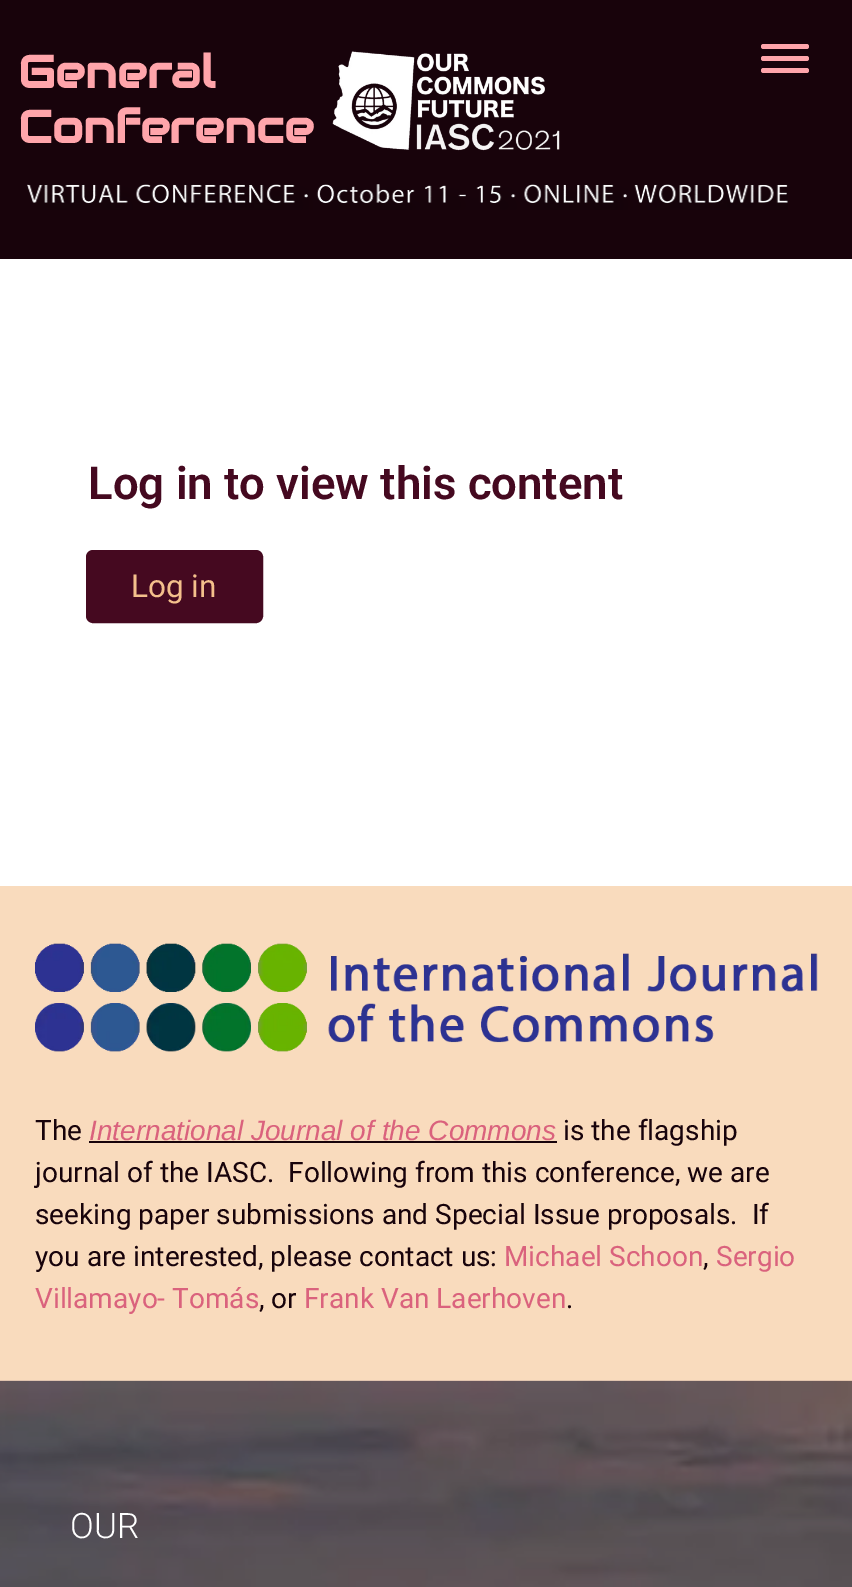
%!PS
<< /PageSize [852 1587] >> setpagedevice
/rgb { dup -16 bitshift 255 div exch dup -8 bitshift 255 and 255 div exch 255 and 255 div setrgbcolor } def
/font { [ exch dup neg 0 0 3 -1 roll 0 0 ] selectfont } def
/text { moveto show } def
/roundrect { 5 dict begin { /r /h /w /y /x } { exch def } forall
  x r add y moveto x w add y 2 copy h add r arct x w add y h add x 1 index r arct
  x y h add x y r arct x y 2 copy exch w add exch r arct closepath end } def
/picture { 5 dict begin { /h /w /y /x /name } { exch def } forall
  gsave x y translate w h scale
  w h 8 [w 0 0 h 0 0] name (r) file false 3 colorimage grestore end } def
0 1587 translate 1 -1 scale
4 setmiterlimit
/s1 { /Audiowide-Bold 45.5 font 16#FFA5AB rgb } def
/s2 { /Roboto-SemiBold 45.5 font 16#450920 rgb } def
/s3 { /Roboto-Regular 31.5 font 16#F4C08C rgb } def
/s4 { /Roboto-Regular 28 font 16#18030B rgb } def
/s5 { /LiberationSans-Italic 28 font 16#DA627D rgb } def
/s6 { /Roboto-Regular 28 font 16#DA627D rgb } def
/s7 { /Roboto-Light 35 font 16#FFFFFF rgb } def
16#FFFFFF rgb
0 0 852 1587 rectfill
16#18030B rgb
0 0 852 259 rectfill
s1
(General) 18 88 text
(Conference) 18 143 text
(pic1.raw) 332 51 228 100 picture
761 56 48 5 2.5 roundrect fill
761 44 48 5 2.5 roundrect fill
761 68 48 5 2.5 roundrect fill
(pic2.raw) 27 184 761 26 picture
s2
(Log in to view this content) 88 499 text
87 551 175 71 6 roundrect gsave fill grestore
2 setlinewidth
stroke
s3
(Log in) 131 597 text
16#F9DBBD rgb
0 886 852 495 rectfill
(pic3.raw) 35 943 783 109 picture
s4
(The) 35 1140 text
s5
(International Journal of the Commons) 89 1140 text
16#18030B rgb
89 1141 468 2 rectfill
s4
(is the flagship) 563 1140 text
(journal of the IASC.  Following from this conference, we are) 35 1182 text
(seeking paper submissions and Special Issue proposals.  If) 35 1224 text
(you are interested, please contact us:) 35 1266 text
s6
(Michael Schoon) 504 1266 text
s4
(,) 703 1266 text
s6
(Sergio) 716 1266 text
(Villamayo- Tomás) 35 1308 text
s4
(, or) 259 1308 text
s6
(Frank Van Laerhoven) 304 1308 text
s4
(.) 566 1308 text
(pic4.raw) 0 1380 852 207 picture
s7
(OUR) 70 1538 text
showpage
